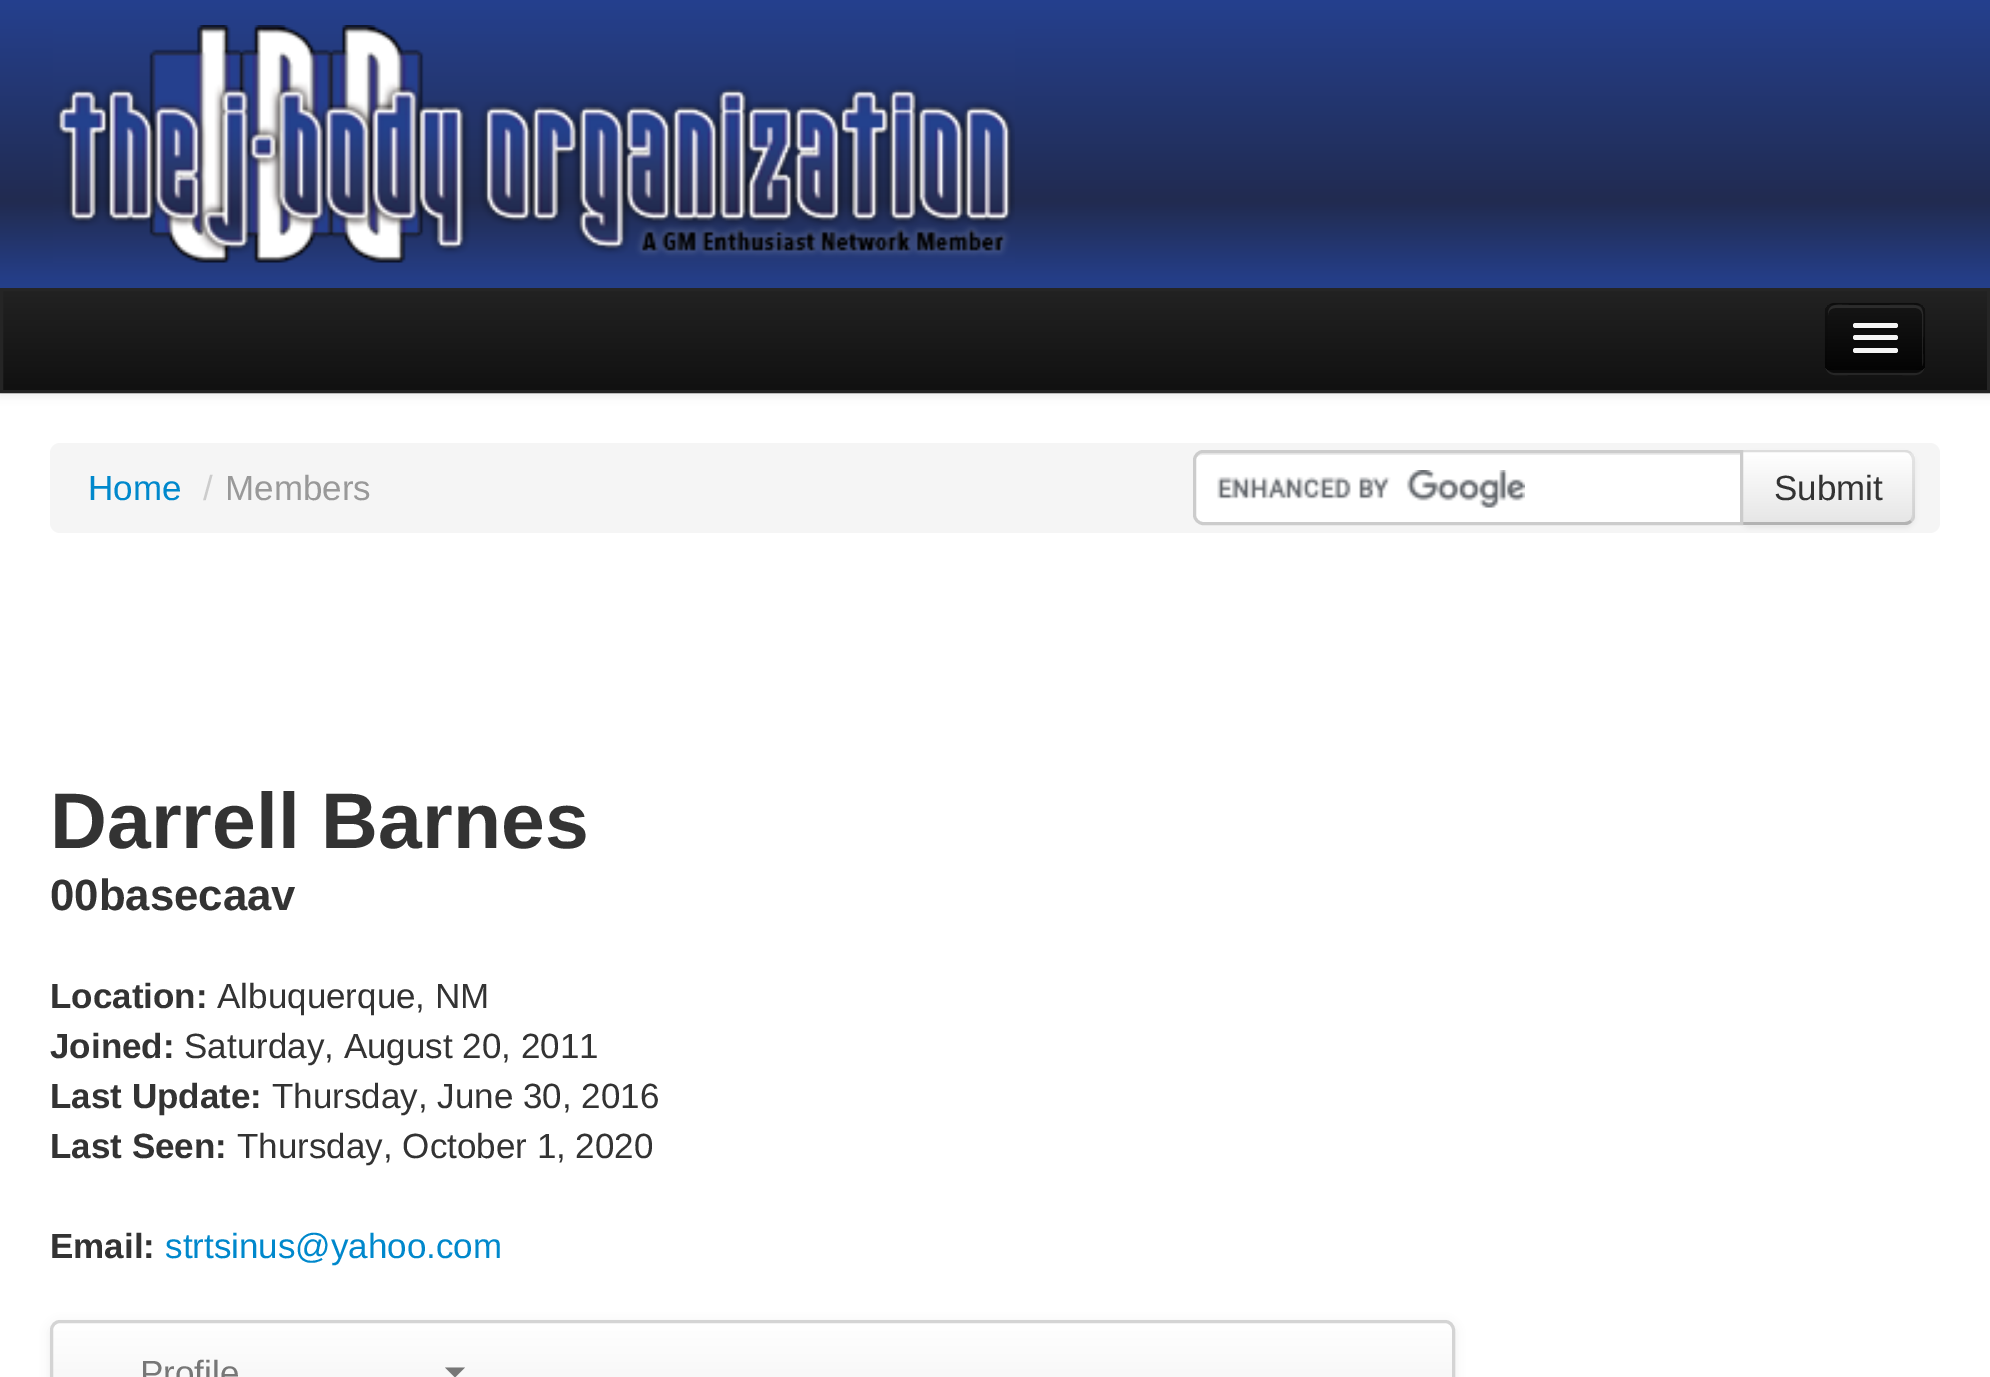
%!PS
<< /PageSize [1990 1377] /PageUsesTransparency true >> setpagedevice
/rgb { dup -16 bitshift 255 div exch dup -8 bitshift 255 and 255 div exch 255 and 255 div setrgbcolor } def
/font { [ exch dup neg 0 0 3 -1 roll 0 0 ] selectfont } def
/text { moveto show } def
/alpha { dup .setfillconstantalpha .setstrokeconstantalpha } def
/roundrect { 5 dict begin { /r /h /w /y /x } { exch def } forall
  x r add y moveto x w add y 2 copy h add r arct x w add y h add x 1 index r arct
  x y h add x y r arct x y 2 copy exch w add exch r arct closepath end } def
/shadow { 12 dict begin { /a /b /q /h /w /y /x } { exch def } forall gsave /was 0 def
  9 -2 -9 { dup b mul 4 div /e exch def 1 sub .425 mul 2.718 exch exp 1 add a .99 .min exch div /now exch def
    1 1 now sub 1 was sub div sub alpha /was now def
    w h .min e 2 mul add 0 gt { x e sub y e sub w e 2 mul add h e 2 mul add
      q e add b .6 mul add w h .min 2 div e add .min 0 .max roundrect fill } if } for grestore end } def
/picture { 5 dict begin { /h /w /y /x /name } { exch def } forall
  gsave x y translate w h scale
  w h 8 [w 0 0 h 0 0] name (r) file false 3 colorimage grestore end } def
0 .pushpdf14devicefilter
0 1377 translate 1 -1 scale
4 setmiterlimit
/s1 { /LiberationSans-Regular 35 font 16#0088CC rgb } def
/s2 { /LiberationSans-Regular 35 font 16#CCCCCC rgb } def
/s3 { /LiberationSans-Regular 35 font 16#999999 rgb } def
/s4 { /LiberationSans-Regular 35 font 16#333333 rgb } def
/s5 { /LiberationSans-Bold 78.75 font 16#333333 rgb } def
/s6 { /LiberationSans-Bold 43.75 font 16#333333 rgb } def
/s7 { /LiberationSans-Bold 35 font 16#333333 rgb } def
/s8 { /LiberationSans-Regular 35 font 16#777777 rgb } def
16#FFFFFF rgb
0 0 1990 1377 rectfill
gsave 0 0 moveto 1990 0 lineto 1990 288 lineto 0 288 lineto closepath clip newpath
<< /ShadingType 2 /ColorSpace /DeviceRGB /Coords [995 0 995 288] /Extend [true true] /Function << /FunctionType 3 /Domain [0 1] /Functions [<< /FunctionType 2 /Domain [0 1] /C0 [0.145 0.251 0.557] /C1 [0.129 0.169 0.314] /N 1 >> << /FunctionType 2 /Domain [0 1] /C0 [0.129 0.169 0.314] /C1 [0.145 0.251 0.557] /N 1 >>] /Bounds [0.7] /Encode [0 1 0 1] >> >> shfill grestore
(pic1.raw) 53 25 962 238 picture
16#000000 rgb
0 290 1990 105 0 5 0.07 shadow
gsave 3 291 moveto 1987 291 lineto 1987 390 lineto 3 390 lineto closepath clip newpath
<< /ShadingType 2 /ColorSpace /DeviceRGB /Coords [995 290 995 390] /Extend [true true] /Function << /FunctionType 2 /Domain [0 1] /C0 [0.133 0.133 0.133] /C1 [0.067 0.067 0.067] /N 1 >> >> shfill grestore
16#252525 rgb
3 setlinewidth
1.5 289.5 1987 102 rectstroke
16#262626 rgb
1825 362 moveto 1825 378 1836 375 1848 375 curveto 1902 375 lineto 1914 375 1925 378 1925 362 curveto 1925 368 1921 372 1915 372 curveto 1835 372 lineto 1829 372 1825 368 1825 362 curveto closepath fill
16#0E0E0E rgb
1825 303 100 70 10 roundrect fill
gsave
1825 303 100 70 10 roundrect clip newpath
gsave 1825 305 moveto 1925 305 lineto 1925 370 lineto 1825 370 lineto closepath clip newpath
<< /ShadingType 2 /ColorSpace /DeviceRGB /Coords [1875 305 1875 370] /Extend [true true] /Function << /FunctionType 2 /Domain [0 1] /C0 [0.082 0.082 0.082] /C1 [0.016 0.016 0.016] /N 1 >> >> shfill grestore
grestore
0.1 alpha
16#FFFFFF rgb
1835 308 moveto 1916 308 lineto 1924 309 1922 318 1922 323 curveto 1922 366 lineto 1924 363 1923 357 1923 354 curveto 1923 338 lineto 1923 300 1928 305 1889 305 curveto 1849 305 lineto 1839 305 1828 302 1828 315 curveto 1828 311 1831 308 1835 308 curveto closepath fill
0.25 alpha
16#000000 rgb
2.5 setlinewidth
1921 368.5 moveto 1919.5 370.5 1917.5 371 1915 371 curveto 1835 371 lineto 1832.5 371 1830.5 370.5 1829 368.5 curveto stroke
0.1 alpha
1829 368.5 moveto 1827 367 1826 365 1826 362.5 curveto 1826 312.5 lineto 1826 310 1827 308 1829 306.5 curveto 1830.5 304.5 1832.5 304 1835 304 curveto 1915 304 lineto 1917.5 304 1919.5 304.5 1921 306.5 curveto 1923 308 1924 310 1924 312.5 curveto 1924 362.5 lineto 1924 365 1923 367 1921 368.5 curveto stroke
1 alpha
16#0B0B0B rgb
1853 327 moveto 1851 332 1861 330 1862 330 curveto 1889 330 lineto 1890 330 1897 332 1898 328 curveto 1897 326 lineto 1895 327 lineto 1855 327 lineto closepath fill
16#F5F5F5 rgb
1853 323 45 5 2.5 roundrect fill
16#090909 rgb
1853 339 moveto 1851 344 1862 343 1862 343 curveto 1889 343 lineto 1890 343 1897 345 1898 341 curveto 1897 339 lineto 1895 340 lineto 1892 340 1855 341 1853 339 curveto closepath fill
16#F5F5F5 rgb
1853 335 45 5 2.5 roundrect fill
16#060606 rgb
1853 352 moveto 1851 357 1861 355 1862 355 curveto 1889 355 lineto 1890 355 1897 357 1898 353 curveto 1897 351 lineto 1895 352 lineto 1855 352 lineto closepath fill
16#F5F5F5 rgb
1853 348 45 5 2.5 roundrect fill
50 443 1890 90 10 roundrect fill
s1
(Home) 88 500 text
s2
(/) 203 500 text
s3
(Members) 225 500 text
16#000000 rgb
1740 453 175 75 10 2.5 0.05 shadow
16#F5F5F5 rgb
1740 450 moveto 1905 450 lineto 1910.5 450 1915 454.5 1915 460 curveto 1915 515 lineto 1915 520.5 1910.5 525 1905 525 curveto 1740 525 lineto closepath fill
gsave
1740 450 moveto 1905 450 lineto 1910.5 450 1915 454.5 1915 460 curveto 1915 515 lineto 1915 520.5 1910.5 525 1905 525 curveto 1740 525 lineto closepath clip newpath
gsave 1743 453 moveto 1915 453 lineto 1915 523 lineto 1743 523 lineto closepath clip newpath
<< /ShadingType 2 /ColorSpace /DeviceRGB /Coords [1828 453 1828 523] /Extend [true true] /Function << /FunctionType 2 /Domain [0 1] /C0 [1 1 1] /C1 [0.902 0.902 0.902] /N 1 >> >> shfill grestore
grestore
0.2 alpha
16#FFFFFF rgb
1743 453 moveto 1743 455 lineto 1905 455 lineto 1914 455 1912 466 1912 471 curveto 1912 519 lineto 1913 518 1913 516 1913 515 curveto 1913 461 lineto 1913 457 1909 453 1905 453 curveto closepath fill
0.1 alpha
16#000000 rgb
1740 450 moveto 1742 452 lineto 1905 452 lineto 1907 452 1909 453 1910 455 curveto 1912 453 lineto 1910 451 1908 450 1905 450 curveto closepath fill
1915 515 moveto 1915 460 lineto 1915 457 1914 454 1912 453 curveto 1910 455 lineto 1911 456 1912 458 1912 460 curveto 1912 515 lineto 1912 517 1911 519 1910 520 curveto 1912 522 lineto 1914 520 1915 518 1915 515 curveto closepath fill
1 alpha
16#B3B3B3 rgb
1905 525 moveto 1908 525 1910 524 1912 522 curveto 1910 520 lineto 1909 521 1907 522 1905 522 curveto 1743 522 lineto 1740 525 lineto closepath fill
16#FFFFFF rgb
1203 450 moveto 1743 450 lineto 1743 525 lineto 1203 525 lineto 1197.5 525 1193 520.5 1193 515 curveto 1193 460 lineto 1193 454.5 1197.5 450 1203 450 curveto closepath fill
(pic2.raw) 1217 470 308 38 picture
16#ECECEC rgb
1202 455 moveto 1740 455 lineto 1740 453 lineto 1203 453 lineto 1198 453 1195 457 1195 462 curveto 1195 458 1198 455 1202 455 curveto closepath fill
16#CCCCCC rgb
3 setlinewidth
1203 451.5 moveto 1741.5 451.5 lineto 1741.5 523.5 lineto 1203 523.5 lineto 1198.5 523.5 1194.5 519.5 1194.5 515 curveto 1194.5 460 lineto 1194.5 455.5 1198.5 451.5 1203 451.5 curveto closepath stroke
s4
(Submit) 1774 500 text
s5
(Darrell Barnes) 50 848 text
s6
(00basecaav) 50 910 text
s7
(Location:) 50 1008 text
s4
(Albuquerque, NM) 217 1008 text
s7
(Joined:) 50 1058 text
s4
(Saturday, August 20, 2011) 184 1058 text
s7
(Last Update:) 50 1108 text
s4
(Thursday, June 30, 2016) 272 1108 text
s7
(Last Seen:) 50 1158 text
s4
(Thursday, October 1, 2020) 237 1158 text
s7
(Email:) 50 1258 text
s1
(strtsinus@yahoo.com) 165 1258 text
16#000000 rgb
50 1323 1405 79 10 5 0.07 shadow
gsave
50 1320 1405 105 10 roundrect clip newpath
gsave 50 1323 moveto 1455 1323 lineto 1455 1377 lineto 50 1377 lineto closepath clip newpath
<< /ShadingType 2 /ColorSpace /DeviceRGB /Coords [753 1323 753 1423] /Extend [true true] /Function << /FunctionType 2 /Domain [0 1] /C0 [1 1 1] /C1 [0.949 0.949 0.949] /N 1 >> >> shfill grestore
grestore
16#D4D4D4 rgb
51.5 1321.5 1402 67 8.5 roundrect stroke
s8
(Profile) 140 1385 text
445 1367.5 moveto 465 1367.5 lineto 455 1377.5 lineto closepath fill
.poppdf14devicefilter showpage
